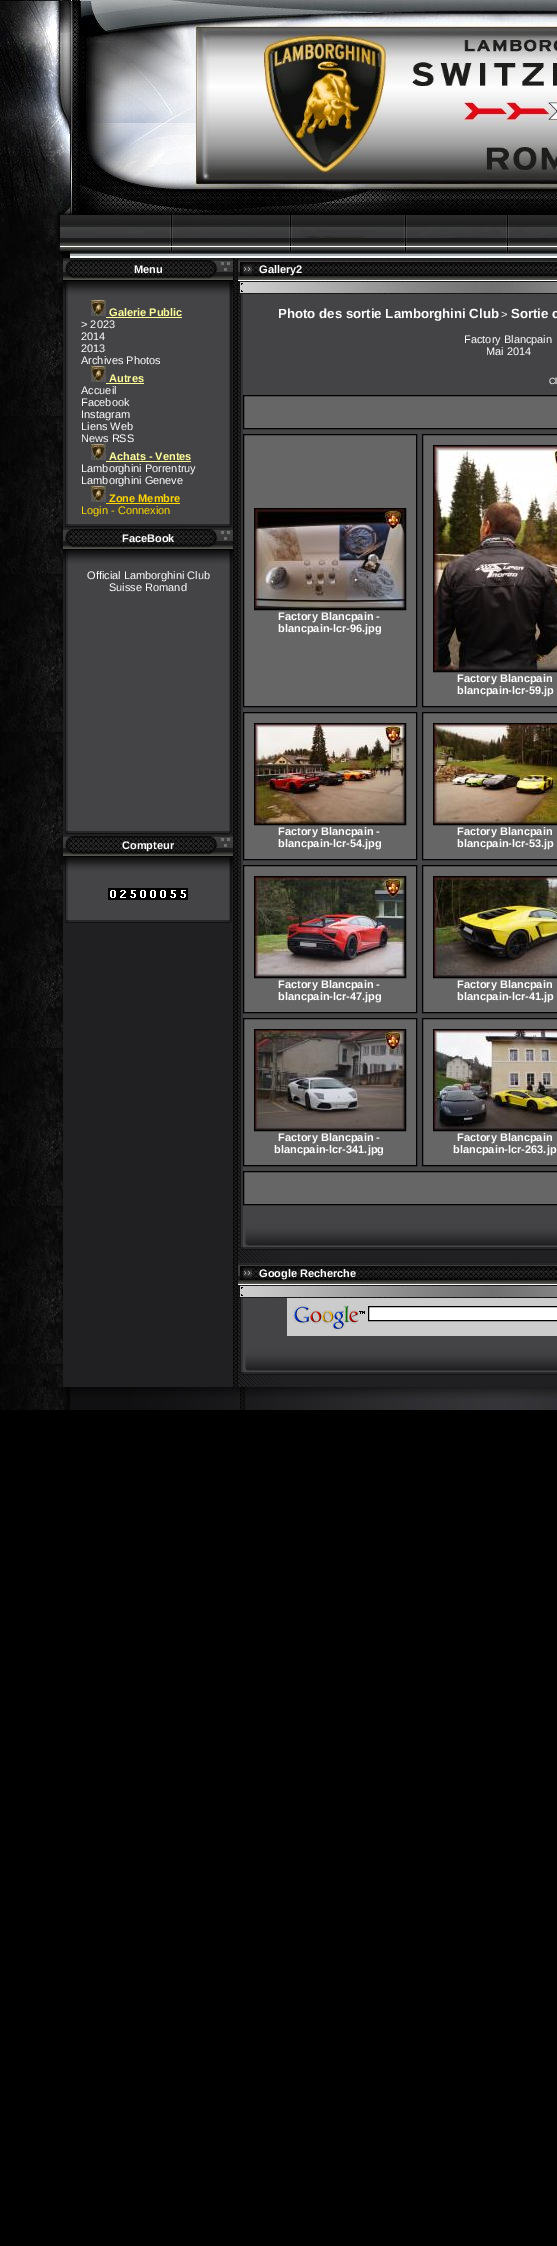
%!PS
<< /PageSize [557 2246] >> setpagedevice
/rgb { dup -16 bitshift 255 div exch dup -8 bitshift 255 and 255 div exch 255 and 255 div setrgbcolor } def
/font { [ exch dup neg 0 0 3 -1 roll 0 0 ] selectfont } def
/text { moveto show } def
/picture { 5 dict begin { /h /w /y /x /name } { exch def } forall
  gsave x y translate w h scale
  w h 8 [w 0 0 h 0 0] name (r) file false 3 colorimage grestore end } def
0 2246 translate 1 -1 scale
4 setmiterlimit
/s1 { /LiberationSans-Bold 11 font 16#FFFFFF rgb } def
/s2 { /LiberationSans-Bold 11 font 16#FFFF99 rgb } def
/s3 { /LiberationSans-Regular 11 font 16#FFFFFF rgb } def
/s4 { /LiberationSans-Bold 11 font 16#FFD700 rgb } def
/s5 { /LiberationSans-Regular 11 font 16#FFD700 rgb } def
/s6 { /LiberationSans-Bold 13.25 font 16#FFFFFF rgb } def
/s7 { /LiberationSans-Regular 9 font 16#FFFFFF rgb } def
16#000000 rgb
0 0 557 2246 rectfill
(pic1.raw) 0 0 557 215 picture
(pic2.raw) 0 215 557 43 picture
(pic3.raw) 0 258 63 1129 picture
16#202022 rgb
63 297 170 1090 rectfill
(pic4.raw) 63 258 170 22 picture
s1
(Menu) 134 273 text
(pic5.raw) 63 280 170 17 picture
(pic6.raw) 65 297 167 222 picture
(pic7.raw) 91 300 15 16 picture
s2
(Galerie Public) 109 316 text
106 317 76 1 rectfill
s3
(> 2023) 81 328 text
(2014) 81 340 text
(2013) 81 352 text
(Archives Photos) 81 364 text
(pic7.raw) 91 366 15 16 picture
s2
(Autres) 109 382 text
106 383 38 1 rectfill
s3
(Accueil) 81 394 text
(Facebook) 81 406 text
(Instagram) 81 418 text
(Liens Web) 81 430 text
(News RSS) 81 442 text
(pic7.raw) 91 444 15 16 picture
s2
(Achats - Ventes) 109 460 text
106 461 85 1 rectfill
s3
(Lamborghini Porrentruy) 81 472 text
(Lamborghini Geneve) 81 484 text
(pic7.raw) 91 486 15 16 picture
s4
(Zone Membre) 109 502 text
106 503 74 1 rectfill
s5
(Login - Connexion) 81 514 text
(pic8.raw) 65 519 167 8 picture
(pic4.raw) 63 527 170 22 picture
s1
(FaceBook) 122 542 text
(pic5.raw) 63 549 170 17 picture
(pic9.raw) 65 566 167 260 picture
s3
(Official Lamborghini Club) 87 579 text
(Suisse Romand) 109 591 text
(pic8.raw) 65 826 167 8 picture
(pic4.raw) 63 834 170 22 picture
s1
(Compteur) 122 849 text
(pic5.raw) 63 856 170 17 picture
(pic10.raw) 65 873 167 42 picture
(pic11.raw) 108 888 10 12 picture
(pic12.raw) 118 888 10 12 picture
(pic13.raw) 128 888 10 12 picture
(pic11.raw) 138 888 10 12 picture
(pic11.raw) 148 888 10 12 picture
(pic11.raw) 158 888 10 12 picture
(pic13.raw) 168 888 10 12 picture
(pic13.raw) 178 888 10 12 picture
(pic8.raw) 65 915 167 8 picture
(pic14.raw) 233 258 5 1129 picture
(pic15.raw) 238 1222 319 165 picture
(pic16.raw) 238 258 319 22 picture
(Gallery2) 259 273 text
(pic17.raw) 238 280 319 14 picture
(pic18.raw) 238 294 319 928 picture
s6
(Photo des sortie Lamborghini Club) 278 318 text
s3
(>) 501 318 text
s6
(Sortie c) 511 318 text
s3
(Factory Blancpain) 464 343 text
(Mai 2014) 486 355 text
s7
(Cl) 549 384 text
16#666666 rgb
243.5 395.5 moveto 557.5 395.5 lineto 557.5 428.5 lineto 243.5 428.5 lineto closepath gsave fill grestore
16#000000 rgb
stroke
16#666666 rgb
243.5 434.5 moveto 416.5 434.5 lineto 416.5 706.5 lineto 243.5 706.5 lineto closepath gsave fill grestore
16#000000 rgb
stroke
254.5 508.5 151 101 rectstroke
(pic19.raw) 255 509 150 100 picture
s1
(Factory Blancpain -) 278 620 text
(blancpain-lcr-96.jpg) 278 632 text
16#666666 rgb
422.5 434.5 moveto 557.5 434.5 lineto 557.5 706.5 lineto 422.5 706.5 lineto closepath gsave fill grestore
16#000000 rgb
stroke
433.5 445.5 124 226 rectstroke
(pic20.raw) 434 446 123 225 picture
s1
(Factory Blancpain) 457 682 text
(blancpain-lcr-59.jp) 457 694 text
16#666666 rgb
243.5 712.5 moveto 416.5 712.5 lineto 416.5 859.5 lineto 243.5 859.5 lineto closepath gsave fill grestore
16#000000 rgb
stroke
254.5 723.5 151 101 rectstroke
(pic21.raw) 255 724 150 100 picture
s1
(Factory Blancpain -) 278 835 text
(blancpain-lcr-54.jpg) 278 847 text
16#666666 rgb
422.5 712.5 moveto 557.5 712.5 lineto 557.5 859.5 lineto 422.5 859.5 lineto closepath gsave fill grestore
16#000000 rgb
stroke
433.5 723.5 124 101 rectstroke
(pic22.raw) 434 724 123 100 picture
s1
(Factory Blancpain) 457 835 text
(blancpain-lcr-53.jp) 457 847 text
16#666666 rgb
243.5 865.5 moveto 416.5 865.5 lineto 416.5 1012.5 lineto 243.5 1012.5 lineto closepath gsave fill grestore
16#000000 rgb
stroke
254.5 876.5 151 101 rectstroke
(pic23.raw) 255 877 150 100 picture
s1
(Factory Blancpain -) 278 988 text
(blancpain-lcr-47.jpg) 278 1000 text
16#666666 rgb
422.5 865.5 moveto 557.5 865.5 lineto 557.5 1012.5 lineto 422.5 1012.5 lineto closepath gsave fill grestore
16#000000 rgb
stroke
433.5 876.5 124 101 rectstroke
(pic24.raw) 434 877 123 100 picture
s1
(Factory Blancpain) 457 988 text
(blancpain-lcr-41.jp) 457 1000 text
16#666666 rgb
243.5 1018.5 moveto 416.5 1018.5 lineto 416.5 1165.5 lineto 243.5 1165.5 lineto closepath gsave fill grestore
16#000000 rgb
stroke
254.5 1029.5 151 101 rectstroke
(pic25.raw) 255 1030 150 100 picture
s1
(Factory Blancpain -) 278 1141 text
(blancpain-lcr-341.jpg) 274 1153 text
16#666666 rgb
422.5 1018.5 moveto 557.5 1018.5 lineto 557.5 1165.5 lineto 422.5 1165.5 lineto closepath gsave fill grestore
16#000000 rgb
stroke
433.5 1029.5 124 101 rectstroke
(pic26.raw) 434 1030 123 100 picture
s1
(Factory Blancpain) 457 1141 text
(blancpain-lcr-263.jp) 453 1153 text
16#666666 rgb
243.5 1171.5 moveto 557.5 1171.5 lineto 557.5 1204.5 lineto 243.5 1204.5 lineto closepath gsave fill grestore
16#000000 rgb
stroke
(pic27.raw) 240 1222 317 28 picture
(pic16.raw) 238 1262 319 22 picture
s1
(Google Recherche) 259 1277 text
(pic17.raw) 238 1284 319 14 picture
(pic28.raw) 238 1298 319 49 picture
16#CCCCCC rgb
287 1298 270 38 rectfill
(pic29.raw) 292 1305 73 26 picture
16#FFFFFF rgb
368.5 1306.5 moveto 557.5 1306.5 lineto 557.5 1320.5 lineto 368.5 1320.5 lineto closepath gsave fill grestore
16#000000 rgb
stroke
(pic30.raw) 238 1347 319 28 picture
(pic31.raw) 0 1387 557 23 picture
showpage
